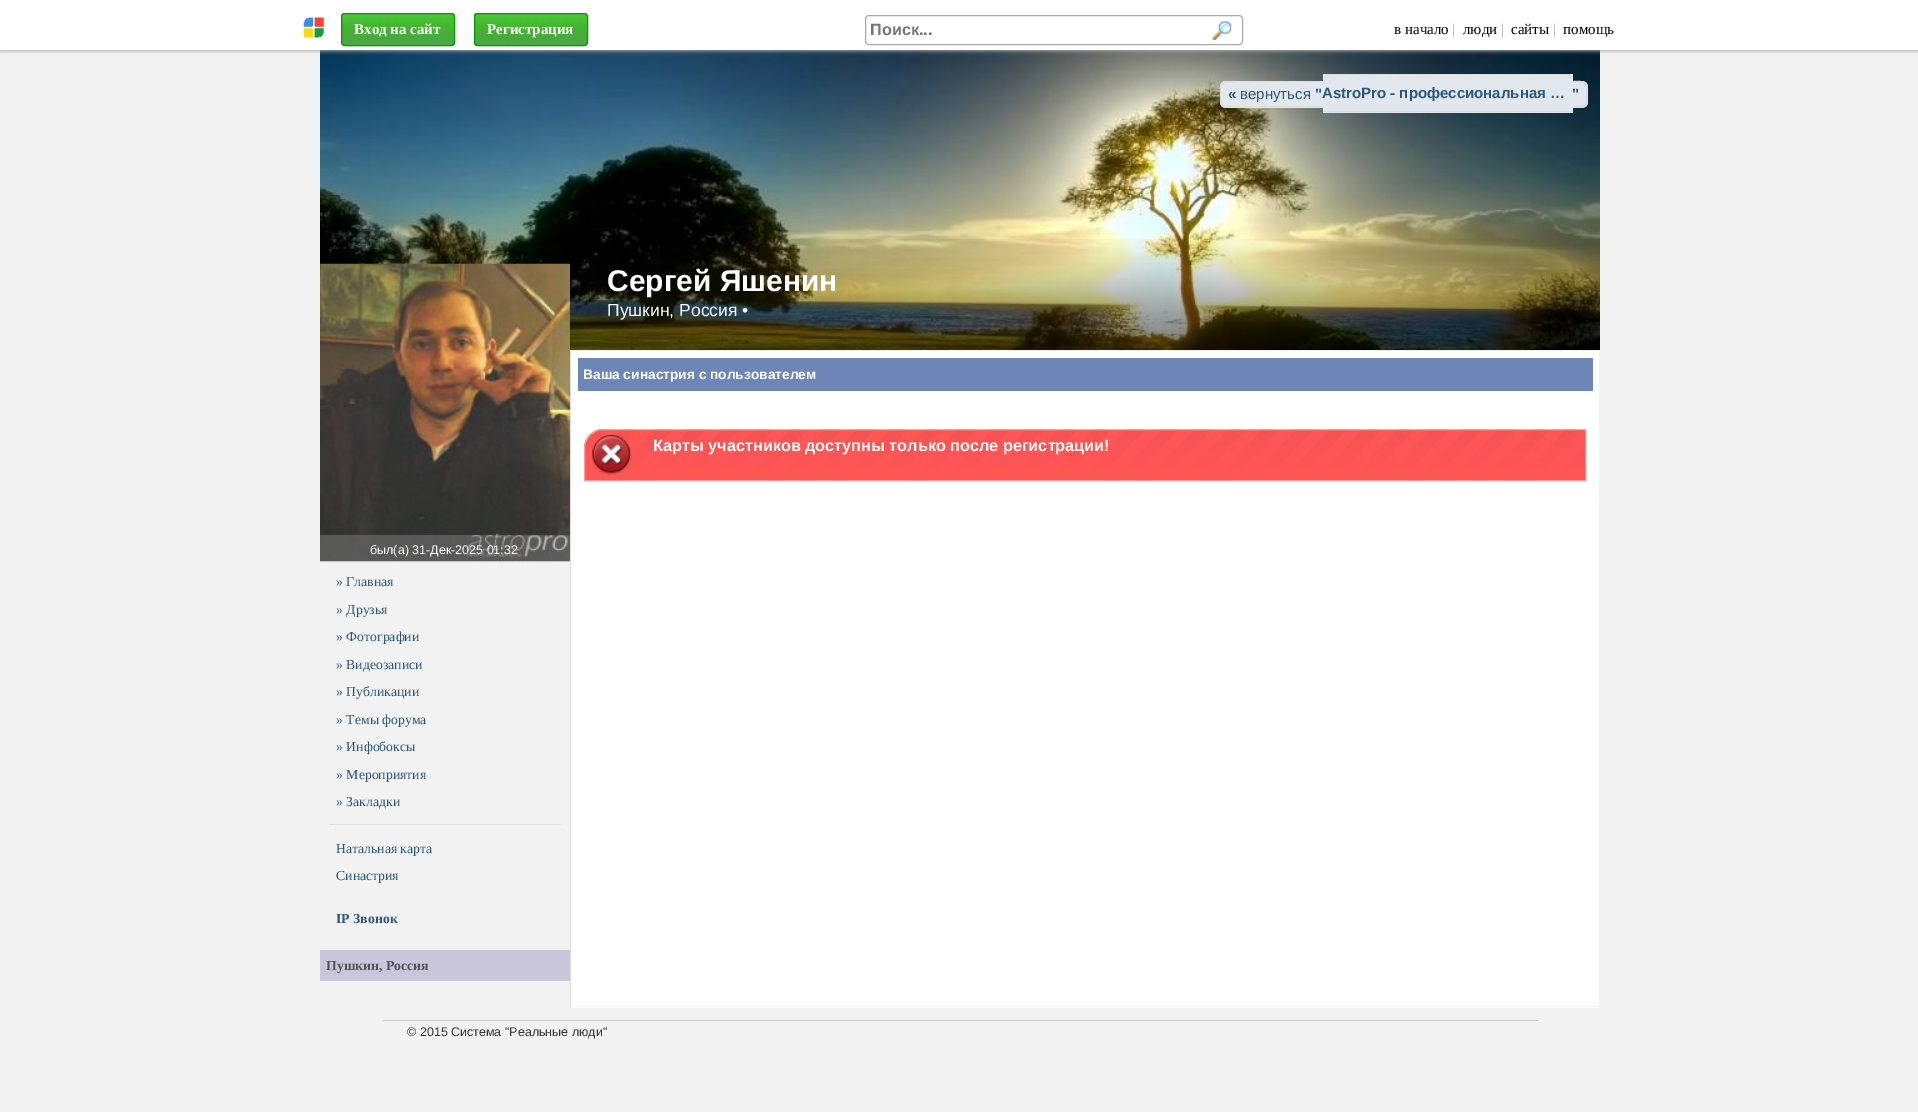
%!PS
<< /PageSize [1918 1112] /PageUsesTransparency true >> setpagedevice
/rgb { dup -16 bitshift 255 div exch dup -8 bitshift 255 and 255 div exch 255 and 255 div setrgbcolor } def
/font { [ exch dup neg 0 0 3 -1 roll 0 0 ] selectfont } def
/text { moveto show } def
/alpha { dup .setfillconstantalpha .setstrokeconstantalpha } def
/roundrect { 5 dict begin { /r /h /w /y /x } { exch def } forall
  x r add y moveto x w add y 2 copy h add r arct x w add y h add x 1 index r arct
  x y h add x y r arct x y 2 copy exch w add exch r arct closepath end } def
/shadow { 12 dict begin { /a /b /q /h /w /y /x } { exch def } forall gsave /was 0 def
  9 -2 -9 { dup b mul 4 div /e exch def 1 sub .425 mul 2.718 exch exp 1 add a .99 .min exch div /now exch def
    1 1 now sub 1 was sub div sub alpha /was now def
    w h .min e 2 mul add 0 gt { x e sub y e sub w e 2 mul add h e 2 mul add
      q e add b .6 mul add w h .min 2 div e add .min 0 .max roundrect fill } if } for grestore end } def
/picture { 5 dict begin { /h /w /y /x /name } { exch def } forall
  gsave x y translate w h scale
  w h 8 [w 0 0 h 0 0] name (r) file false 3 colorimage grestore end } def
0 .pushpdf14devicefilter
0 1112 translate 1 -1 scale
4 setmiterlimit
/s1 { /LiberationSerif-Bold 15 font 16#FFFFFF rgb } def
/s2 { /LiberationSans-Bold 16.25 font 16#757575 rgb } def
/s3 { /LiberationSerif-Regular 15 font 16#000000 rgb } def
/s4 { /LiberationSerif-Regular 15 font 16#AAAAAA rgb } def
/s5 { /LiberationSans-Bold 15 font 16#2B587A rgb } def
/s6 { /LiberationSans-Regular 15 font 16#2B587A rgb } def
/s7 { /LiberationSans-Bold 30 font 16#FFFFFF rgb } def
/s8 { /LiberationSans-Regular 17.5 font 16#FFFFFF rgb } def
/s9 { /LiberationSans-Bold 13.75 font 16#FFFFFF rgb } def
/s10 { /LiberationSans-Bold 16.25 font 16#F9F9F9 rgb } def
/s11 { /LiberationSans-Regular 12.5 font 16#FFFFFF rgb } def
/s12 { /LiberationSerif-Regular 13.75 font 16#2B587A rgb } def
/s13 { /LiberationSerif-Bold 13.75 font 16#2B587A rgb } def
/s14 { /LiberationSerif-Bold 13.75 font 16#535151 rgb } def
/s15 { /LiberationSans-Regular 12.5 font 16#333333 rgb } def
16#F2F2F2 rgb
0 0 1918 1112 rectfill
(pic5.raw) 320 50 1280 300 picture
16#AAAAAA rgb
0 1 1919 50 0 2 1 shadow
16#FFFFFF rgb
0 0 1918 50 rectfill
(pic1.raw) 303 17 21 21 picture
(pic2.raw) 341 13 114 34 picture
16#009900 rgb
341.5 13.5 113 32 3.5 roundrect stroke
s1
(Вход на сайт) 354 34 text
(pic3.raw) 473 13 115 34 picture
16#009900 rgb
474.5 13.5 113 32 3.5 roundrect stroke
s1
(Регистрация) 487 34 text
16#AAAAAA rgb
865.5 15.5 377 29 3.5 roundrect stroke
s2
(Поиск...) 870 35 text
(pic4.raw) 1212 21 20 19 picture
s3
(в начало) 1394 34 text
s4
(|) 1452 34 text
s3
(люди) 1463 34 text
s4
(|) 1501 34 text
s3
(сайты) 1511 34 text
s4
(|) 1553 34 text
s3
(помощь) 1563 34 text
16#E1E7ED rgb
1226 81 moveto 1236 81 lineto 1236 108 lineto 1226 108 lineto 1222.5 108 1220 105.5 1220 102 curveto 1220 87 lineto 1220 83.5 1222.5 81 1226 81 curveto closepath fill
16#DDDDDD rgb
1226 81 moveto 1236 81 lineto 1236 107.5 lineto 1226 107.5 lineto 1223 107.5 1220 104.5 1220 101 curveto 1220 87.5 lineto 1220 84 1223 81 1226 81 curveto closepath 1226 82.5 moveto 1236 82.5 lineto 1236 106 lineto 1226 106 lineto 1223.5 106 1221 104 1221 101 curveto 1221 87.5 lineto 1221 84.5 1223.5 82.5 1226 82.5 curveto closepath eofill
16#E1E7ED rgb
1236 82 79 26 rectfill
16#DDDDDD rgb
1236 81 79 1 rectfill
1236 106 79 1 rectfill
16#E1E7ED rgb
1315 81 8 27 rectfill
16#DDDDDD rgb
1315 81 8 1 rectfill
1315 106 8 1 rectfill
16#E1E7ED rgb
1323 75 250 38 rectfill
16#DDDDDD rgb
1323 74 250 1 rectfill
1323 111 250 1 rectfill
16#E1E7ED rgb
1573 81 moveto 1582 81 lineto 1585.5 81 1588 83.5 1588 87 curveto 1588 102 lineto 1588 105.5 1585.5 108 1582 108 curveto 1573 108 lineto closepath fill
16#DDDDDD rgb
1572.5 81 moveto 1577.5 81 1586 79.5 1587.5 86 curveto 1587.5 102.5 lineto 1586 109 1577.5 107.5 1572.5 107.5 curveto closepath 1572.5 82.5 moveto 1581 82.5 lineto 1584 82.5 1586 84.5 1586 87.5 curveto 1586 101 lineto 1586 104 1584 106 1581 106 curveto 1572.5 106 lineto closepath eofill
s5
(«) 1228 99 text
s6
(вернуться) 1240 99 text
s5
(") 1315 99 text
(AstroPro - профессиональная …) 1322 98 text
(") 1572 99 text
(pic6.raw) 320 239 1280 111 picture
s7
(Сергей Яшенин) 607 291 text
s8
(Пушкин, Россия •) 607 316 text
16#EEEEEE rgb
570 350 1030 1 rectfill
16#FFFFFF rgb
571 351 1028 657 rectfill
16#F2F2F2 rgb
570 1006 1030 1 rectfill
16#DDDDDD rgb
570 351 1 657 rectfill
16#6D86B7 rgb
578 358 1015 33 rectfill
s9
(Ваша синастрия с пользователем) 583 379 text
16#FF5555 rgb
603 429 moveto 1586 429 lineto 1586 481 lineto 584 481 lineto 584 448 lineto 584 437.5 592.5 429 603 429 curveto closepath fill
(pic7.raw) 584 430 1001 45 picture
16#FF9999 rgb
603 429.5 moveto 1585.5 429.5 lineto 1585.5 480.5 lineto 584.5 480.5 lineto 584.5 448 lineto 584.5 438 593 429.5 603 429.5 curveto closepath stroke
s10
(Карты участников доступны только после регистрации!) 653 451 text
(pic8.raw) 320 263 250 299 picture
0.5 alpha
16#808080 rgb
320 535 250 26 rectfill
1 alpha
s11
(был\(а\) 31-Дек-2025 01:32) 370 554 text
s12
(» Главная) 336 586 text
(» Друзья) 336 614 text
(» Фотографии) 336 641 text
(» Видеозаписи) 336 669 text
(» Публикации) 336 696 text
(» Темы форума) 336 724 text
(» Инфобоксы) 336 751 text
(» Мероприятия) 336 779 text
(» Закладки) 336 806 text
16#DAE1E8 rgb
329 824 232 1 rectfill
s12
(Натальная карта) 336 853 text
(Синастрия) 336 880 text
s13
(IP Звонок) 336 923 text
16#C9C5DB rgb
320 950 250 31 rectfill
s14
(Пушкин, Россия) 326 970 text
16#CCCCCC rgb
383 1020 1155 1 rectfill
s15
(© 2015 Система "Реальные люди") 407 1036 text
.poppdf14devicefilter showpage
